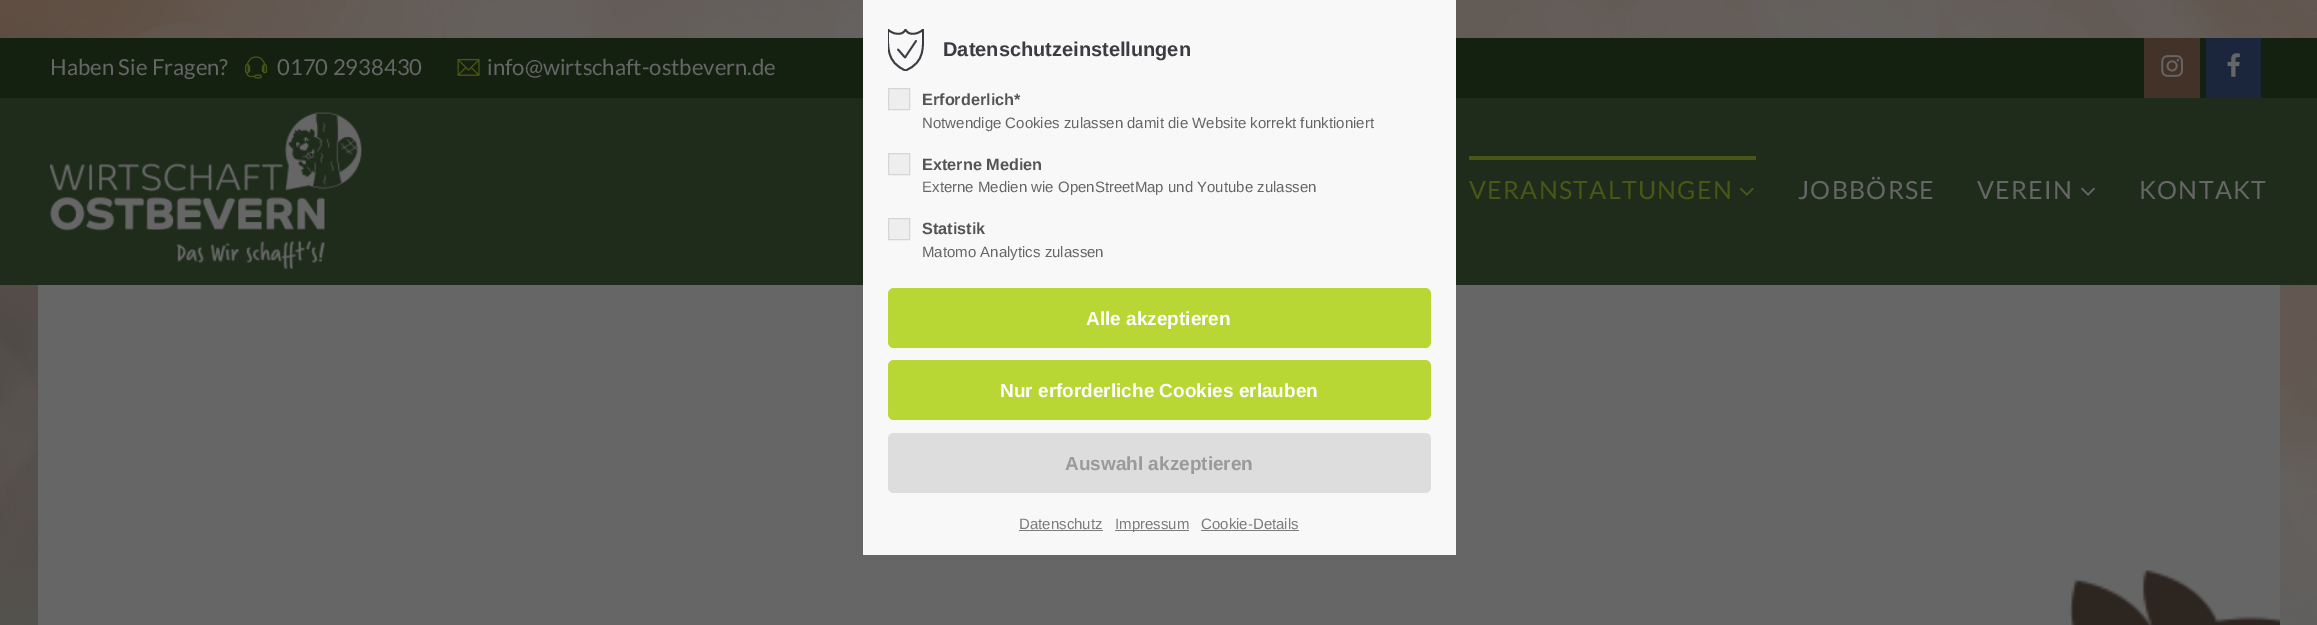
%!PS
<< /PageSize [2317 625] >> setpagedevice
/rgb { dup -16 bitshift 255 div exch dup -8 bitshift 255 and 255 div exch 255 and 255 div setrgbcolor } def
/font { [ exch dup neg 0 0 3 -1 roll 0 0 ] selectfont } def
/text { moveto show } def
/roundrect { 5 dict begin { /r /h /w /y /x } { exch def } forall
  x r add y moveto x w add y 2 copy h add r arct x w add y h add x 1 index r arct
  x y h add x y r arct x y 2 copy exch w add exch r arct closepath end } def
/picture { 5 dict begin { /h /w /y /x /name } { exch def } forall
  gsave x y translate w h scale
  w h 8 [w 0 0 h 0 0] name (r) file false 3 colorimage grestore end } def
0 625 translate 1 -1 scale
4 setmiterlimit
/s1 { /LiberationSans-Bold 20 font 16#3B3C42 rgb } def
/s2 { /LiberationSans-Bold 16.25 font 16#555555 rgb } def
/s3 { /LiberationSans-Regular 15 font 16#666666 rgb } def
/s4 { /LiberationSans-Bold 19 font 16#FFFFFF rgb } def
/s5 { /LiberationSans-Bold 19 font 16#9A9A9A rgb } def
/s6 { /LiberationSans-Regular 15 font 16#7C7C7C rgb } def
/s7 { /Lato-Regular 22.1 font 16#666666 rgb } def
16#FFFFFF rgb
0 0 2317 625 rectfill
(pic1.raw) 0 0 2317 625 picture
16#666666 rgb
38 285 2242 340 rectfill
16#142110 rgb
0 38 2317 60 rectfill
16#1F2C1C rgb
0 98 2317 187 rectfill
16#F8F8F8 rgb
863 0 593 555 rectfill
gsave
888 29 37 42 rectclip
16#3B3C41 rgb
1.8 setlinewidth
1 setlinecap
1 setlinejoin
905.5 70.5 moveto 886 62 888 47 888 29.5 curveto 892 34 902.5 36.5 905.5 29.5 curveto 908.5 36.5 919 34 923 29.5 curveto 923 47 925.5 62 905.5 70.5 curveto closepath stroke
grestore
16#3B3C41 rgb
1.8 setlinewidth
1 setlinecap
1 setlinejoin
898 49.5 moveto 905 57.5 lineto 916 41 lineto stroke
s1
(Datenschutzeinstellungen) 943 56 text
16#EEEEEE rgb
888.5 88.5 moveto 909.5 88.5 lineto 909.5 109.5 lineto 888.5 109.5 lineto closepath gsave fill grestore
16#D6D6D6 rgb
1 setlinewidth
0 setlinecap
0 setlinejoin
stroke
s2
(Erforderlich*) 922 105 text
s3
(Notwendige Cookies zulassen damit die Website korrekt funktioniert) 922 128 text
16#EEEEEE rgb
888.5 153.5 moveto 909.5 153.5 lineto 909.5 174.5 lineto 888.5 174.5 lineto closepath gsave fill grestore
16#D6D6D6 rgb
stroke
s2
(Externe Medien) 922 170 text
s3
(Externe Medien wie OpenStreetMap und Youtube zulassen) 922 192 text
16#EEEEEE rgb
888.5 218.5 moveto 909.5 218.5 lineto 909.5 239.5 lineto 888.5 239.5 lineto closepath gsave fill grestore
16#D6D6D6 rgb
stroke
s2
(Statistik) 922 234 text
s3
(Matomo Analytics zulassen) 922 257 text
16#B8D734 rgb
888 288 543 60 6 roundrect fill
s4
(Alle akzeptieren) 1086 325 text
16#B8D734 rgb
888 360 543 60 6 roundrect fill
s4
(Nur erforderliche Cookies erlauben) 1000 397 text
16#DDDDDD rgb
888 433 543 60 6 roundrect fill
s5
(Auswahl akzeptieren) 1065 470 text
s6
(Datenschutz) 1019 529 text
1019 530 84 1 rectfill
1115 530 74 1 rectfill
(Impressum) 1115 529 text
(Cookie-Details) 1201 529 text
1201 530 98 1 rectfill
s7
(Haben Sie Fragen?) 50 75 text
(pic2.raw) 245 56 23 23 picture
(0170 2938430) 277 75 text
(pic3.raw) 457 58 23 18 picture
(info@wirtschaft-ostbevern.de) 487 75 text
16#433227 rgb
2144 38 56 60 rectfill
(pic4.raw) 2161 55 22 22 picture
16#1B263D rgb
2206 38 55 60 rectfill
(pic5.raw) 2227 53 13 24 picture
(pic6.raw) 50 112 312 157 picture
16#4A5615 rgb
1469 156 287 4 rectfill
/Lato-Regular 25 font
1469 199 moveto 1.25 0 (VERANSTALTUNGEN) ashow
(pic7.raw) 1739 187 15 9 picture
16#666666 rgb
1798 199 moveto 1.25 0 (JOBBÖRSE) ashow
1977 199 moveto 1.25 0 (VEREIN) ashow
(pic8.raw) 2081 187 14 9 picture
2139 199 moveto 1.25 0 (KONTAKT) ashow
(pic9.raw) 2068 570 212 55 picture
showpage
